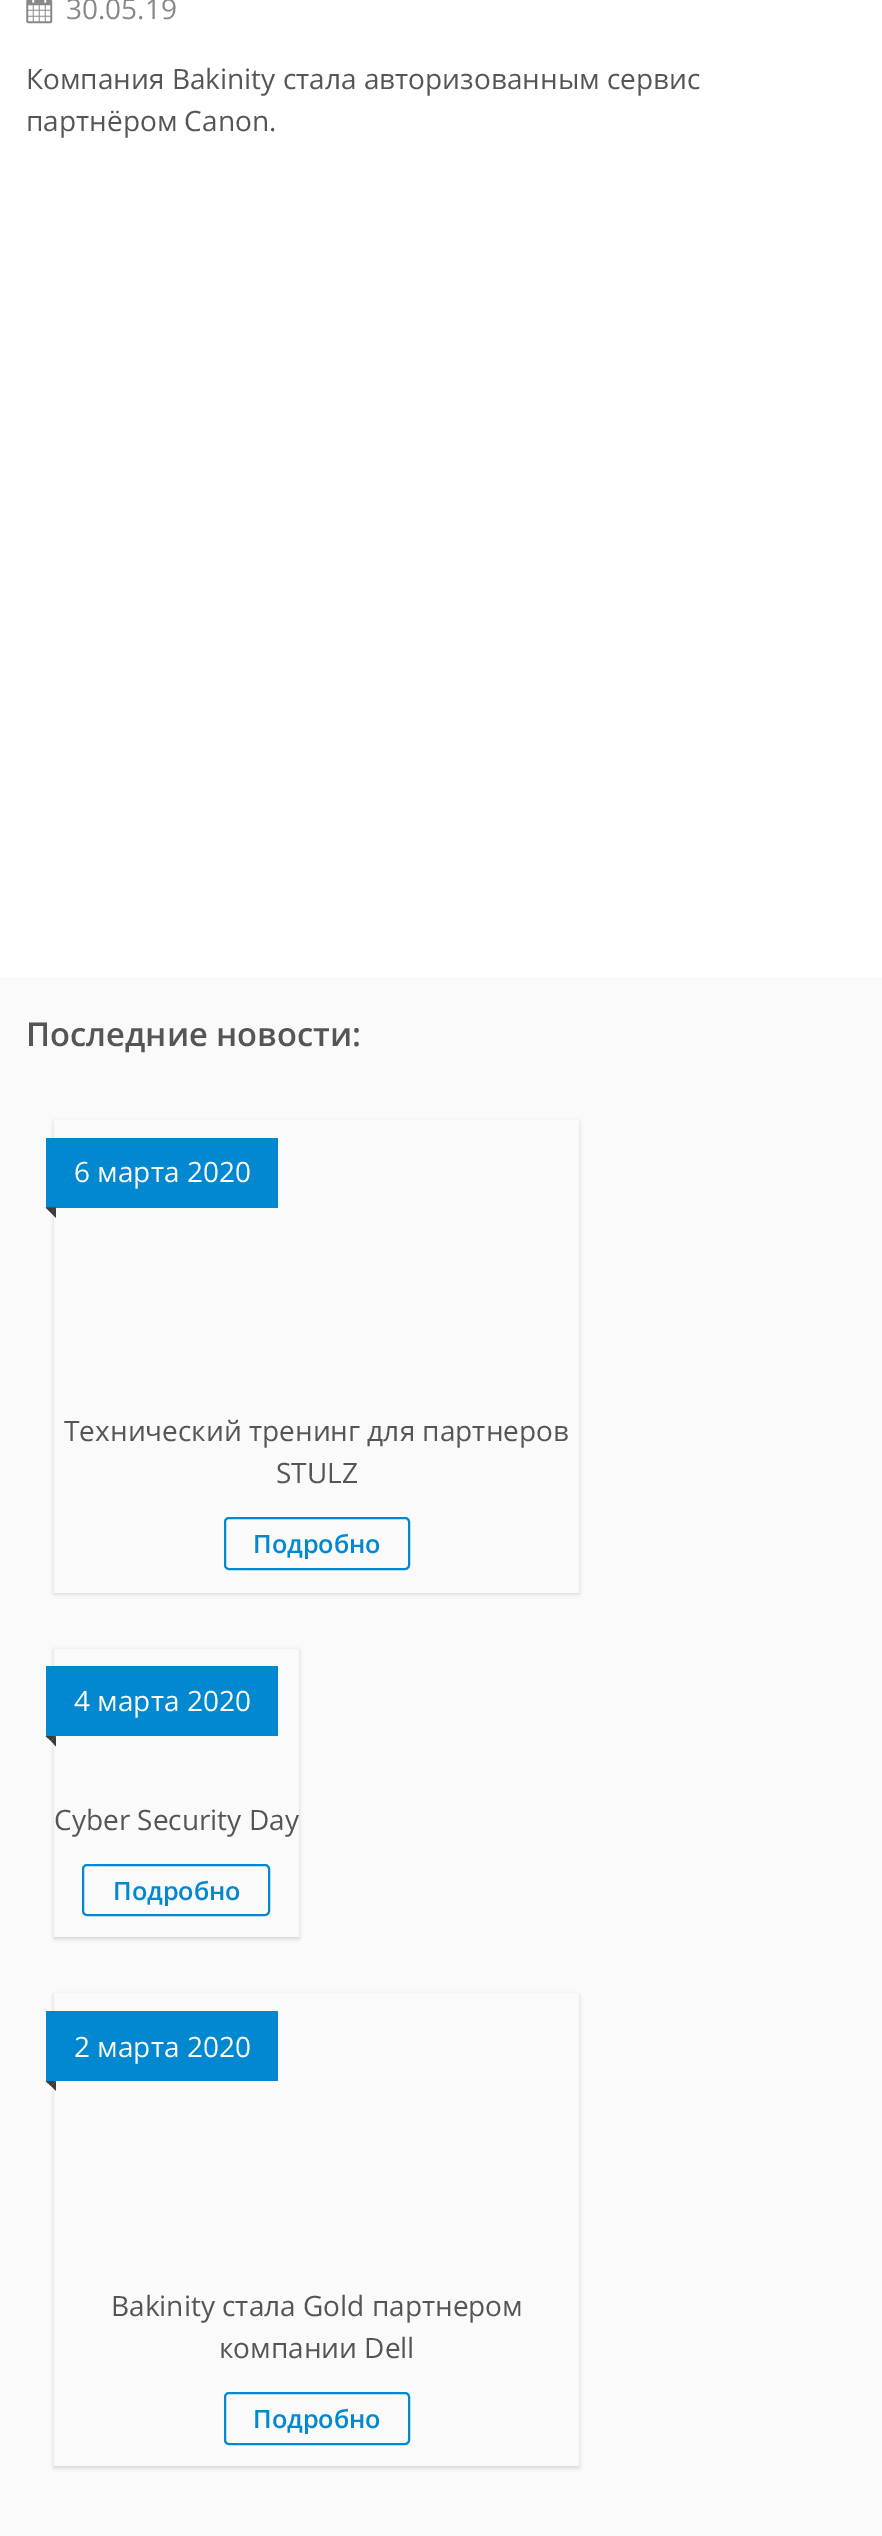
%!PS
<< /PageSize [882 2536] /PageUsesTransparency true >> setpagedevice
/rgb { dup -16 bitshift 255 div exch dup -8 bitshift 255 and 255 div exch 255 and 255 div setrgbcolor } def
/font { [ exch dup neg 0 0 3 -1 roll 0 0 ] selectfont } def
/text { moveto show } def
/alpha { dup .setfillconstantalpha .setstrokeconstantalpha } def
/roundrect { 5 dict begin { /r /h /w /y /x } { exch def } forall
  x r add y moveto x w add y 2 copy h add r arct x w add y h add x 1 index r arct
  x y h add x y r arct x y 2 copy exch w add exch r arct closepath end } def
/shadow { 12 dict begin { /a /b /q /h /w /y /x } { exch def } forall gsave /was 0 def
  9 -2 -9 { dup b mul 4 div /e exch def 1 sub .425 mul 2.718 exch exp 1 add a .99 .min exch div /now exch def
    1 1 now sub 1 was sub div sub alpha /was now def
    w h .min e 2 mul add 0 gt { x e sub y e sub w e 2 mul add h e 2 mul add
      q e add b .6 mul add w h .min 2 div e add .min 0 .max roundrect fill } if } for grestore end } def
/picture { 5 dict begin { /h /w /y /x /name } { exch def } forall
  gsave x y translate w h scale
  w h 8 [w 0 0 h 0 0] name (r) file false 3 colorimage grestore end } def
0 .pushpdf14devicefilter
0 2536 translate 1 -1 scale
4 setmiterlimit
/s1 { /OpenSans-Regular 28 font 16#888888 rgb } def
/s2 { /OpenSans-Regular 28 font 16#555555 rgb } def
/s3 { /OpenSans-SemiBold 32.75 font 16#555555 rgb } def
/s4 { /OpenSans-Regular 28 font 16#FFFFFF rgb } def
/s5 { /OpenSans-SemiBold 25.25 font 16#0288D1 rgb } def
16#FFFFFF rgb
0 0 882 2536 rectfill
(pic1.raw) 26 0 27 24 picture
s1
(30.05.19) 66 19 text
s2
(Компания Bakinity стала авторизованным сервис) 26 89 text
(партнёром Canon.) 26 131 text
16#FAFAFA rgb
0 977 882 1559 rectfill
s3
(Последние новости:) 26 1046 text
16#000000 rgb
54 1122 525 472 0 2 0.15 shadow
16#FAFAFA rgb
54 1120 525 473 rectfill
16#0288D1 rgb
46 1138 232 70 rectfill
s4
(6 марта 2020) 74 1182 text
16#3B3B3B rgb
45.5 1207.5 moveto 56 1207.5 lineto 51 1213 lineto closepath fill
56 1207.5 moveto 56 1218 lineto 51 1213 lineto closepath fill
s2
(Технический тренинг для партнеров) 64 1441 text
(STULZ) 276 1483 text
16#0288D1 rgb
2 setlinewidth
225 1518 184 51 4 roundrect stroke
s5
(Подробно) 253 1553 text
16#000000 rgb
54 1650 245 289 0 2 0.15 shadow
16#FAFAFA rgb
54 1649 245 288 rectfill
16#0288D1 rgb
46 1666 232 70 rectfill
s4
(4 марта 2020) 74 1711 text
16#3B3B3B rgb
45.5 1736 moveto 56 1736 lineto 51 1741 lineto closepath fill
56 1736 moveto 56 1746.5 lineto 51 1741 lineto closepath fill
s2
(Cyber Security Day) 54 1830 text
16#0288D1 rgb
83 1865 186 50 4 roundrect stroke
s5
(Подробно) 113 1900 text
16#000000 rgb
54 1995 525 473 0 2 0.15 shadow
16#FAFAFA rgb
54 1993 525 473 rectfill
16#0288D1 rgb
46 2011 232 70 rectfill
s4
(2 марта 2020) 74 2057 text
16#3B3B3B rgb
45.5 2081 moveto 56 2081 lineto 51 2086 lineto closepath fill
56 2081 moveto 56 2091 lineto 51 2086 lineto closepath fill
s2
(Bakinity стала Gold партнером) 111 2316 text
(компании Dell) 219 2358 text
16#0288D1 rgb
225 2393 184 51 4 roundrect stroke
s5
(Подробно) 253 2428 text
.poppdf14devicefilter showpage
